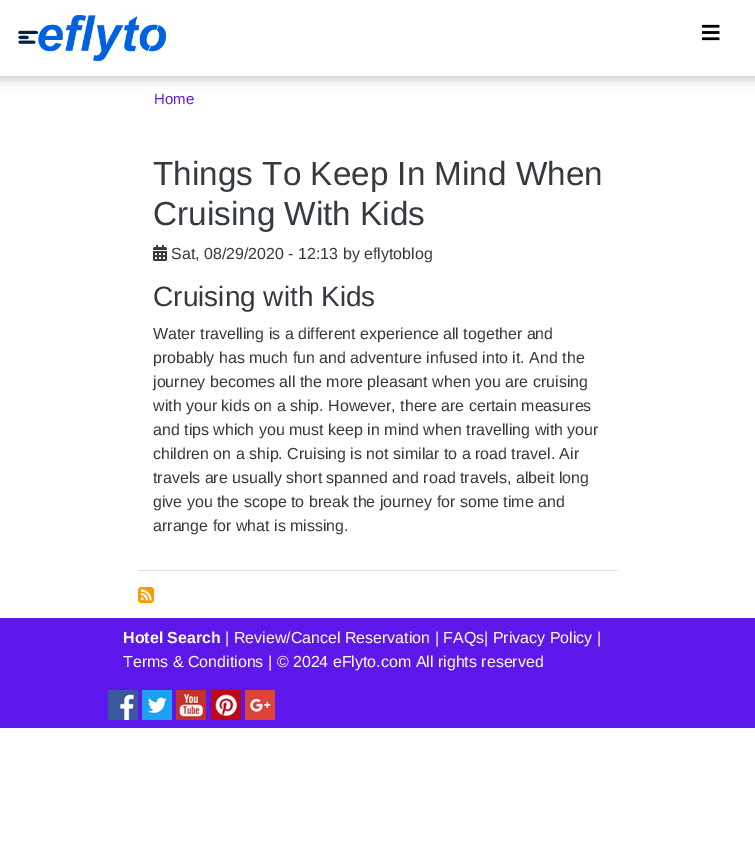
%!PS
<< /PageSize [755 857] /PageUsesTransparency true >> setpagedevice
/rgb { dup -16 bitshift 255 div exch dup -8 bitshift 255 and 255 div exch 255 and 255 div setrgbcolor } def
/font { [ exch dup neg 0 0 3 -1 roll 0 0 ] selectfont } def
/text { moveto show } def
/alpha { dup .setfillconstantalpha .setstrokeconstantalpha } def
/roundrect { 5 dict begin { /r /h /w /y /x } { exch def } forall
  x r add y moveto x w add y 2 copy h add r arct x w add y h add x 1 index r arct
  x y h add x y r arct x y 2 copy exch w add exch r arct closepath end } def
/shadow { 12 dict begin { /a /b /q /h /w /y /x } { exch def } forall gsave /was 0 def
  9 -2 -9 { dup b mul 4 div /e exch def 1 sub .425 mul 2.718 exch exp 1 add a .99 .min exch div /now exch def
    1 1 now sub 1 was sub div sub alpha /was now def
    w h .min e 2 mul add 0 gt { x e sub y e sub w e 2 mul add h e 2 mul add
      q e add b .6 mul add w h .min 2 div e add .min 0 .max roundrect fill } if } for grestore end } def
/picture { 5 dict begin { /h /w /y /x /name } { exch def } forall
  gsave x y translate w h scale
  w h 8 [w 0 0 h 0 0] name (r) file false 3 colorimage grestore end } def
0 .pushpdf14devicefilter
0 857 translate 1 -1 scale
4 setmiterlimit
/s1 { /LiberationSans-Regular 15 font 16#5E17EA rgb } def
/s2 { /LiberationSans-Regular 33.3 font 16#343A40 rgb } def
/s3 { /LiberationSans-Regular 16 font 16#343A40 rgb } def
/s4 { /LiberationSans-Regular 28 font 16#343A40 rgb } def
/s5 { /LiberationSans-Bold 16 font 16#FFFFFF rgb } def
/s6 { /LiberationSans-Regular 16 font 16#FFFFFF rgb } def
16#FFFFFF rgb
0 0 755 857 rectfill
gsave
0 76 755 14 rectclip
16#CCCCCC rgb
-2 -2 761 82 0 5 1 shadow
grestore
(pic1.raw) 18 15 149 47 picture
(pic2.raw) 702 24 18 17 picture
s1
(Home) 154 104 text
16#DEE2E6 rgb
138 570 480 1 rectfill
s2
(Things To Keep In Mind When) 153 185 text
(Cruising With Kids) 153 225 text
(pic3.raw) 153 245 14 16 picture
s3
(Sat, 08/29/2020 - 12:13 by eflytoblog) 171 259 text
s4
(Cruising with Kids) 153 306 text
s3
(Water travelling is a different experience all together and) 153 339 text
(probably has much fun and adventure infused into it. And the) 153 363 text
(journey becomes all the more pleasant when you are cruising) 153 387 text
(with your kids on a ship. However, there are certain measures) 153 411 text
(and tips which you must keep in mind when travelling with your) 153 435 text
(children on a ship. Cruising is not similar to a road travel. Air) 153 459 text
(travels are usually short spanned and road travels, albeit long) 153 483 text
(give you the scope to break the journey for some time and) 153 507 text
(arrange for what is missing.) 153 531 text
(pic4.raw) 138 587 16 16 picture
16#5E17EA rgb
0 618 755 110 rectfill
s5
(Hotel Search) 123 643 text
s6
(| Review/Cancel Reservation | FAQs| Privacy Policy |) 225 643 text
(Terms & Conditions | © 2024 eFlyto.com All rights reserved) 123 667 text
(pic5.raw) 108 690 30 30 picture
(pic6.raw) 142 690 30 30 picture
(pic7.raw) 176 690 30 30 picture
(pic8.raw) 211 690 30 30 picture
(pic9.raw) 245 690 30 30 picture
.poppdf14devicefilter showpage
